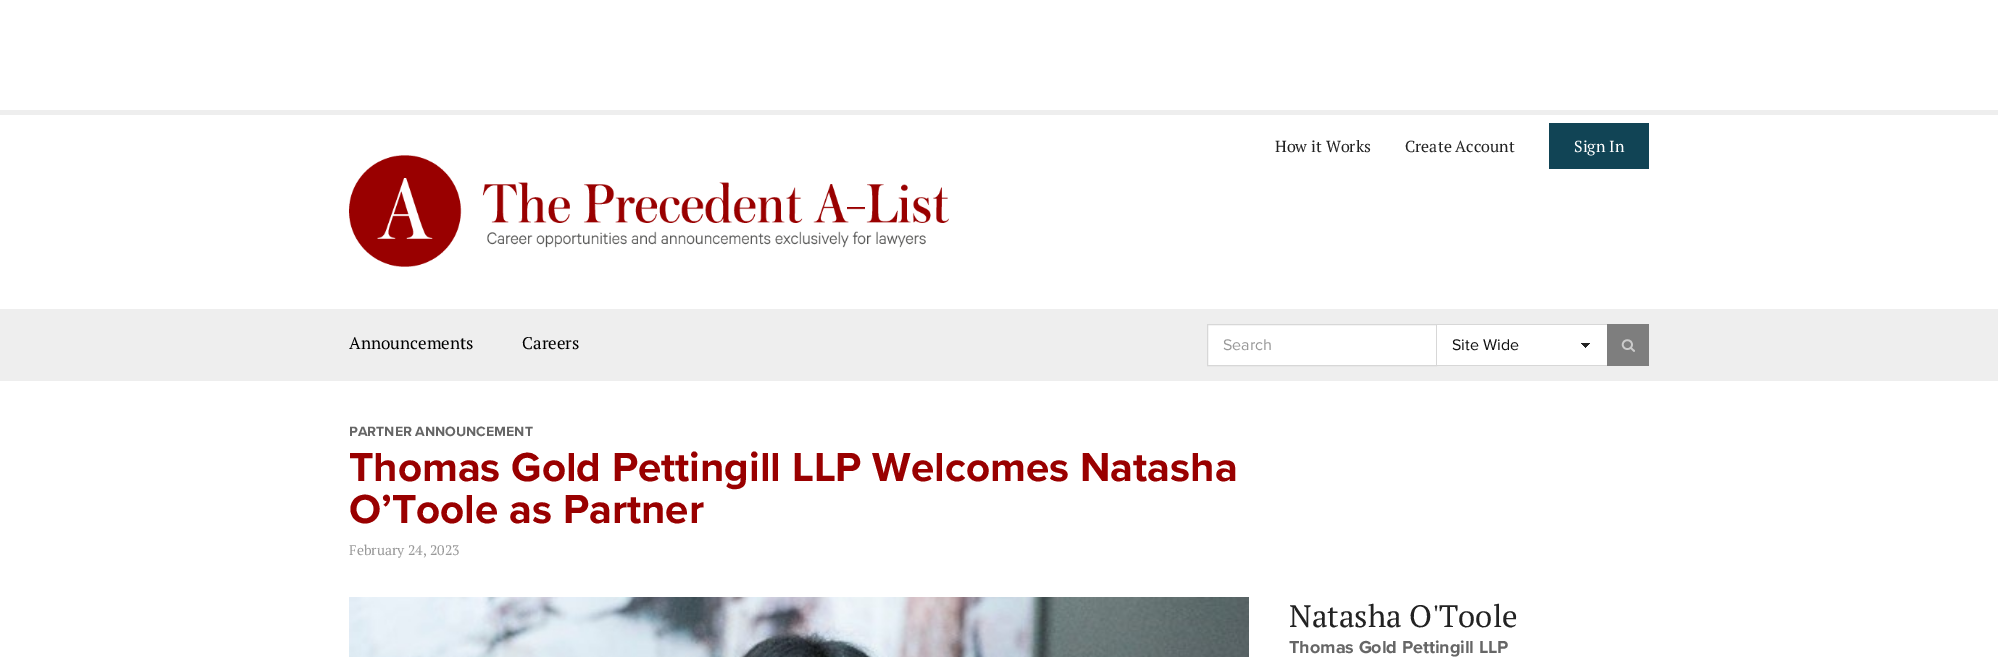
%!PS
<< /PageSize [1998 657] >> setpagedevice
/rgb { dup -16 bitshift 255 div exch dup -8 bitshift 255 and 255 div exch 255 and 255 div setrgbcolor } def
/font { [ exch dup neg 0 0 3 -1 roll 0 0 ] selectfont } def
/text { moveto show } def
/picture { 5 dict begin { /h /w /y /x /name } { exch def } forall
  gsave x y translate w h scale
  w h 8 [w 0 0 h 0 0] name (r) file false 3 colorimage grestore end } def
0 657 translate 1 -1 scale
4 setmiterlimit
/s1 { /PTSerif-Regular 16 font 16#222222 rgb } def
/s2 { /PTSerif-Regular 16 font 16#FFFFFF rgb } def
/s3 { /PTSerif-Regular 17 font 16#000000 rgb } def
/s4 { /ProximaNova-Regular 16 font 16#999999 rgb } def
/s5 { /ProximaNova-Regular 16 font 16#111111 rgb } def
/s6 { /ProximaNova-Bold 14 font 16#666666 rgb } def
/s7 { /ProximaNova-Bold 42 font 16#990000 rgb } def
/s8 { /PTSerif-Regular 14 font 16#999999 rgb } def
/s9 { /PTSerif-Regular 31 font 16#222222 rgb } def
/s10 { /ProximaNova-Bold 18 font 16#666666 rgb } def
16#FFFFFF rgb
0 0 1998 657 rectfill
16#EEEEEE rgb
0 110 1998 5 rectfill
s1
(How it Works) 1275 152 text
(Create Account) 1405 152 text
16#114455 rgb
1549 123 100 46 rectfill
s2
(Sign In) 1574 152 text
(pic1.raw) 349 155 600 112 picture
16#EEEEEE rgb
0 309 1998 72 rectfill
s3
(Announcements) 349 349 text
(Careers) 522 349 text
16#FFFFFF rgb
1207.5 324.5 moveto 1436.5 324.5 lineto 1436.5 365.5 lineto 1207.5 365.5 lineto closepath gsave fill grestore
16#D7D7D7 rgb
stroke
s4
(Search) 1223 350 text
16#FFFFFF rgb
1437 325 170 40 rectfill
(pic2.raw) 1581 343 9 5 picture
16#D7D7D7 rgb
1437 324 170 1 rectfill
1437 365 170 1 rectfill
s5
(Site Wide) 1452 350 text
16#7E7E7E rgb
1607 324 42 42 rectfill
(pic3.raw) 1621 339 14 13 picture
s6
(PARTNER ANNOUNCEMENT) 349 436 text
s7
(Thomas Gold Pettingill LLP Welcomes Natasha) 349 481 text
(O’Toole as Partner) 349 523 text
s8
(February 24, 2023) 349 555 text
(pic4.raw) 349 597 900 60 picture
s9
(Natasha O'Toole) 1289 627 text
s10
(Thomas Gold Pettingill LLP) 1289 653 text
showpage
